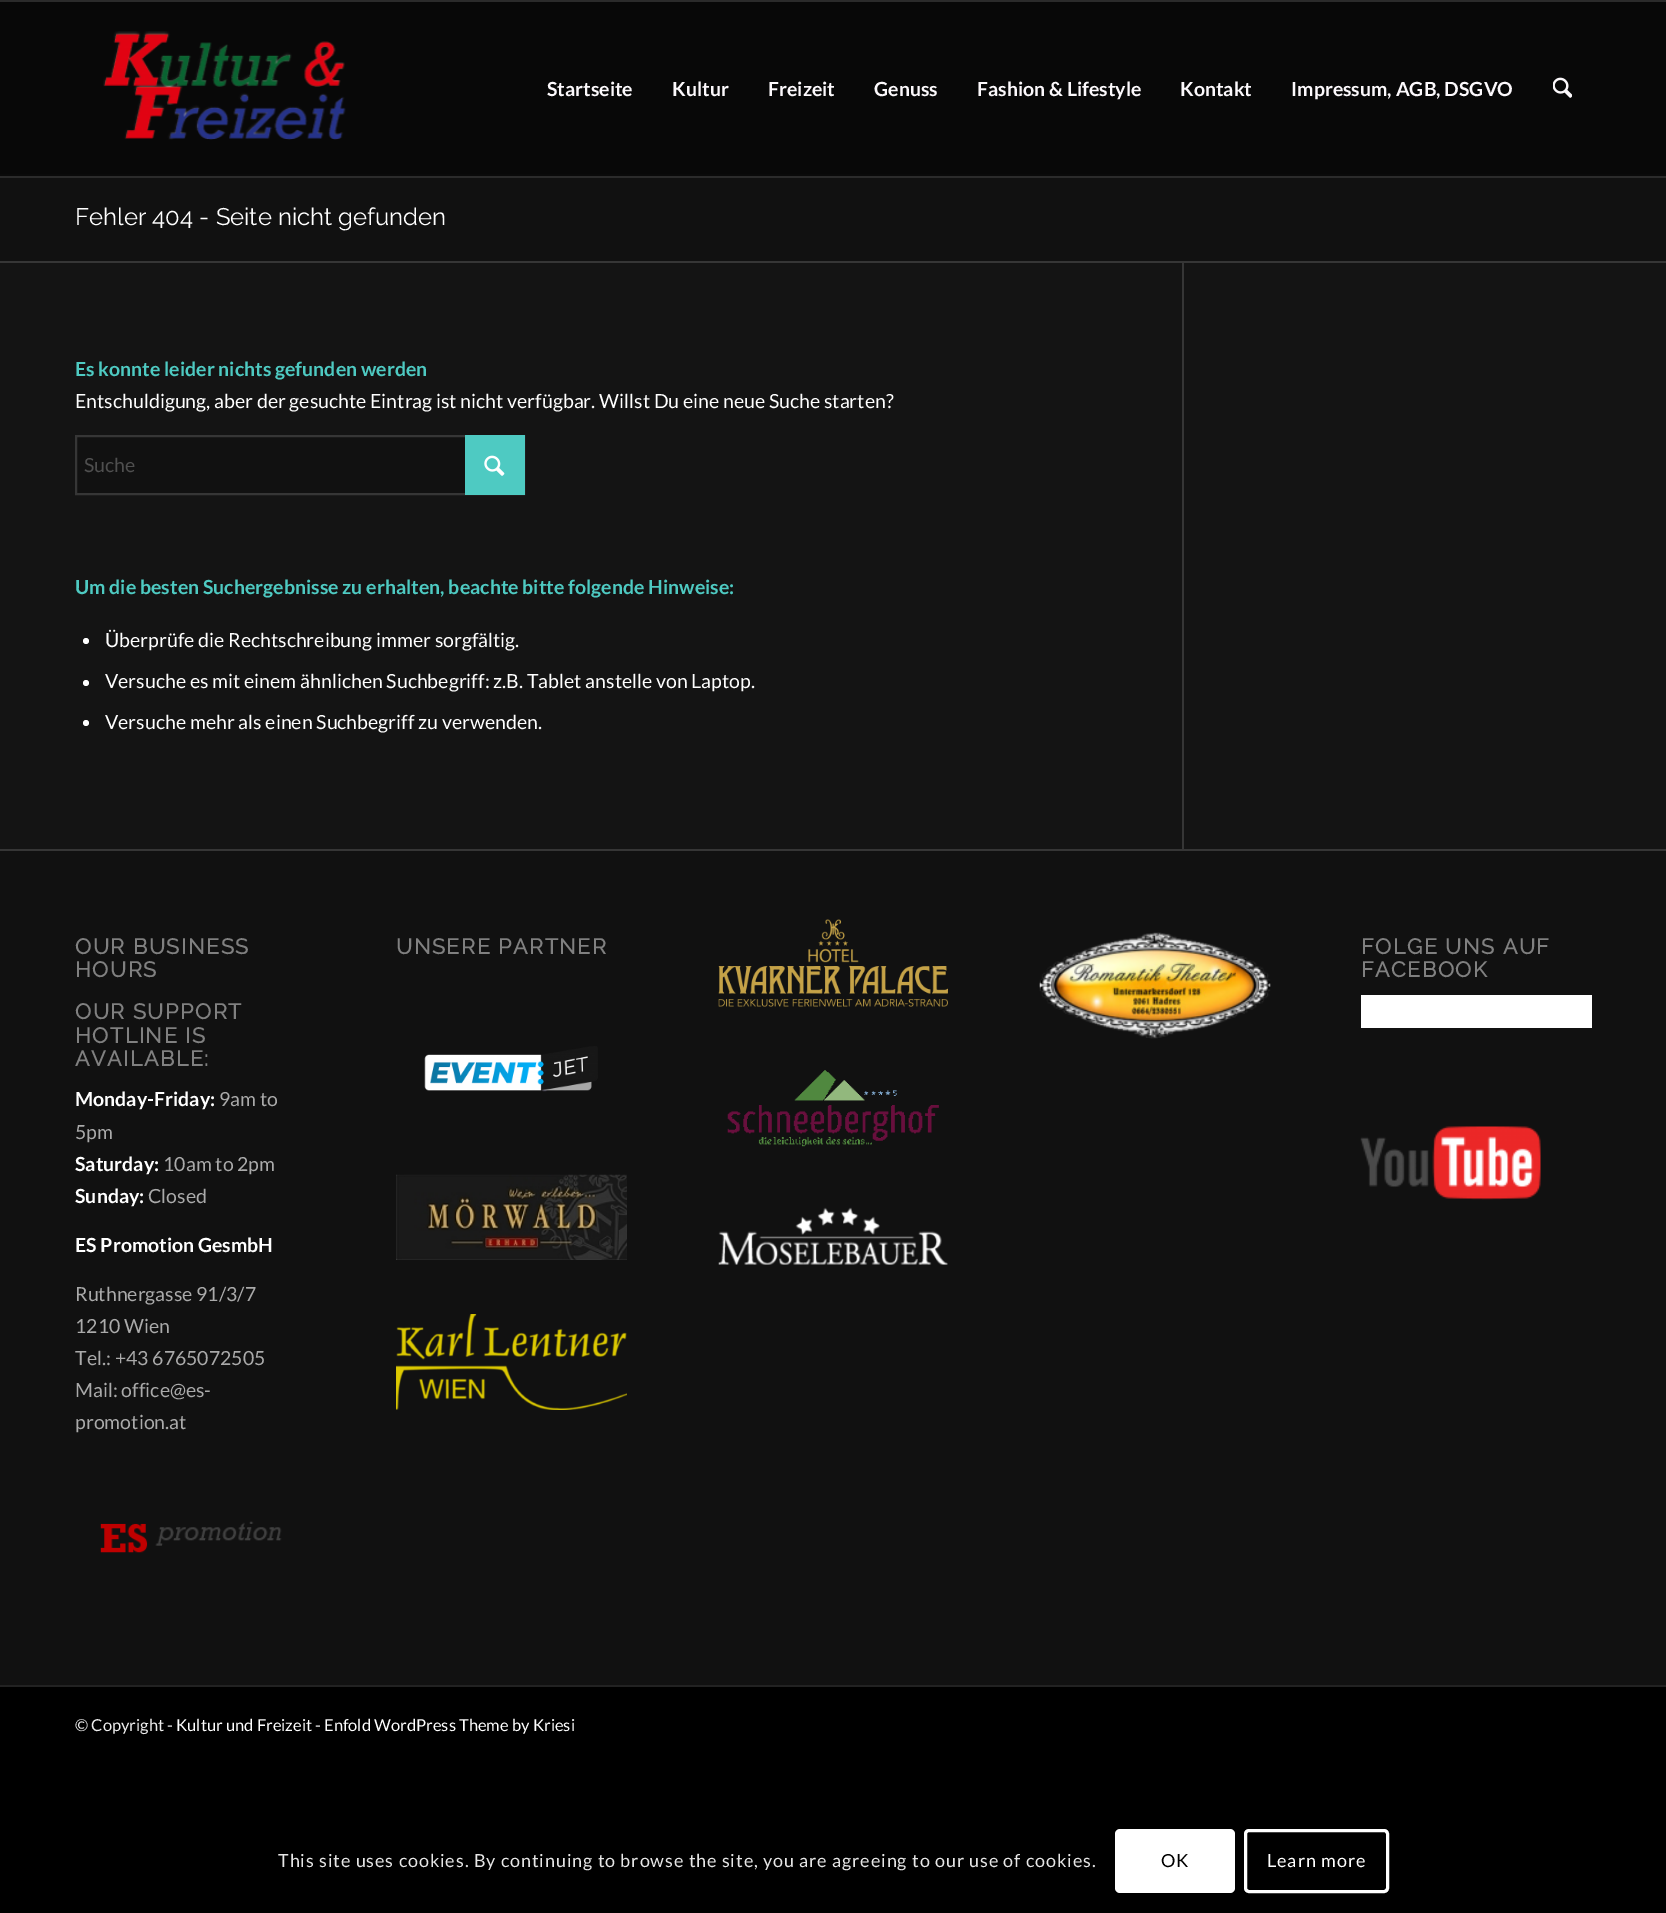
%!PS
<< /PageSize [1666 1913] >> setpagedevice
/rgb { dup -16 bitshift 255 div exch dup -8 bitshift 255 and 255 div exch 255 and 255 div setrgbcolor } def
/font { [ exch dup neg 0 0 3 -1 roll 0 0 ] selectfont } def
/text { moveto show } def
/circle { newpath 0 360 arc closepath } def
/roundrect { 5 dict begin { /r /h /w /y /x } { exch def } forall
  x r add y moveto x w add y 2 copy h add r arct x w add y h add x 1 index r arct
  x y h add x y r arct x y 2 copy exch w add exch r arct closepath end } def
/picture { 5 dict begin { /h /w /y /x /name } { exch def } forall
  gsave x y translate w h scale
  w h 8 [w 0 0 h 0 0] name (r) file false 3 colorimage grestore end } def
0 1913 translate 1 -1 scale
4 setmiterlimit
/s1 { /Lato-Bold 19.5 font 16#FCF9FC rgb } def
/s2 { /Raleway-Thin 24 font 16#FFFFFF rgb } def
/s3 { /Lato-Bold 19.5 font 16#4ECAC2 rgb } def
/s4 { /Lato-Regular 19.5 font 16#FFFFFF rgb } def
/s5 { /Lato-Regular 19.5 font 16#4F4F4F rgb } def
/s6 { /Lato-Bold 19.5 font 16#FFFFFF rgb } def
/s7 { /Lato-Regular 19.5 font 16#AAAAAA rgb } def
/s8 { /Lato-Regular 16.5 font 16#EEEEEE rgb } def
/s9 { /Lato-Regular 16.5 font 16#FFFFFF rgb } def
16#000000 rgb
0 0 1666 1913 rectfill
16#2B2B2B rgb
0 0 1666 2 rectfill
0 176 1666 2 rectfill
16#080808 rgb
0 2 1666 172 rectfill
(pic1.raw) 103 31 243 109 picture
s1
(Startseite) 547 96 text
(Kultur) 672 96 text
(Freizeit) 768 96 text
(Genuss) 874 96 text
(Fashion & Lifestyle) 977 96 text
(Kontakt) 1180 96 text
(Impressum, AGB, DSGVO) 1291 96 text
(pic2.raw) 1553 77 19 21 picture
16#111111 rgb
0 178 1666 83 rectfill
16#0A0A0A rgb
0 174 1666 2 rectfill
s2
(Fehler 404 - Seite nicht gefunden) 75 225 text
16#141414 rgb
0 263 1666 586 rectfill
16#363636 rgb
0 261 1666 2 rectfill
1182 263 2 586 rectfill
s3
(Es konnte leider nichts gefunden werden) 75 376 text
s4
(Entschuldigung, aber der gesuchte Eintrag ist nicht verfügbar. Willst Du eine neue Suche starten?) 75 408 text
16#111111 rgb
77 437 388 56 rectfill
16#363636 rgb
2 setlinewidth
76 436 448 58 rectstroke
16#4ECAC2 rgb
465 435 60 60 rectfill
s5
(Suche) 84 472 text
(pic3.raw) 484 455 21 21 picture
s3
(Um die besten Suchergebnisse zu erhalten, beachte bitte folgende Hinweise:) 75 594 text
16#FFFFFF rgb
86 641 3 circle fill
s4
(Überprüfe die Rechtschreibung immer sorgfältig.) 105 647 text
86 683 3 circle fill
(Versuche es mit einem ähnlichen Suchbegriff: z.B. Tablet anstelle von Laptop.) 105 688 text
86 723 3 circle fill
(Versuche mehr als einen Suchbegriff zu verwenden.) 105 729 text
16#111111 rgb
0 851 1666 834 rectfill
16#363636 rgb
0 849 1666 2 rectfill
/Raleway-Bold 21.5 font
16#808080 rgb
75 954 moveto 1.5 0 (OUR BUSINESS) ashow
75 977 moveto 1.5 0 (HOURS) ashow
75 1019 moveto 1.5 0 (OUR SUPPORT) ashow
75 1043 moveto 1.5 0 (HOTLINE IS) ashow
75 1066 moveto 1.5 0 (AVAILABLE:) ashow
s6
(Monday-Friday:) 75 1106 text
s7
(9am to) 219 1106 text
(5pm) 75 1139 text
s6
(Saturday:) 75 1171 text
s7
(10am to 2pm) 163 1171 text
s6
(Sunday:) 75 1203 text
s7
(Closed) 148 1203 text
s6
(ES Promotion GesmbH) 75 1252 text
s7
(Ruthnergasse 91/3/7) 75 1301 text
(1210 Wien) 75 1333 text
(Tel.: +43 6765072505) 75 1365 text
(Mail: office@es-) 75 1397 text
(promotion.at) 75 1429 text
(pic4.raw) 100 1521 182 32 picture
/Raleway-Bold 21.5 font
16#808080 rgb
396 954 moveto 1.5 0 (UNSERE PARTNER) ashow
(pic5.raw) 424 1046 174 46 picture
(pic6.raw) 396 1174 231 86 picture
(pic7.raw) 396 1314 231 96 picture
(pic8.raw) 718 919 230 88 picture
(pic9.raw) 727 1070 212 77 picture
(pic10.raw) 718 1207 230 58 picture
(pic11.raw) 1039 932 232 107 picture
1361 954 moveto 1.5 0 (FOLGE UNS AUF) ashow
1361 977 moveto 1.5 0 (FACEBOOK) ashow
16#FFFFFF rgb
1361 995 231 33 rectfill
(pic12.raw) 1360 1126 181 74 picture
16#222222 rgb
0 1685 1666 2 rectfill
s8
(© Copyright -) 75 1731 text
s9
(Kultur und Freizeit) 176 1731 text
s8
(-) 315 1731 text
s9
(Enfold WordPress Theme by Kriesi) 324 1731 text
/Lato-Regular 18 font
16#E6E6E6 rgb
278 1867 moveto 0.9 0 (This site uses cookies. By continuing to browse the site, you are agreeing to our use of cookies.) ashow
16#FFFFFF rgb
1115 1829 120 64 5 roundrect fill
16#000000 rgb
1161 1867 moveto 0.9 0 (OK) ashow
16#FFFFFF rgb
3 setlinewidth
1245.5 1830.5 142 61 3.5 roundrect stroke
1267 1867 moveto 0.9 0 (Learn more) ashow
showpage
